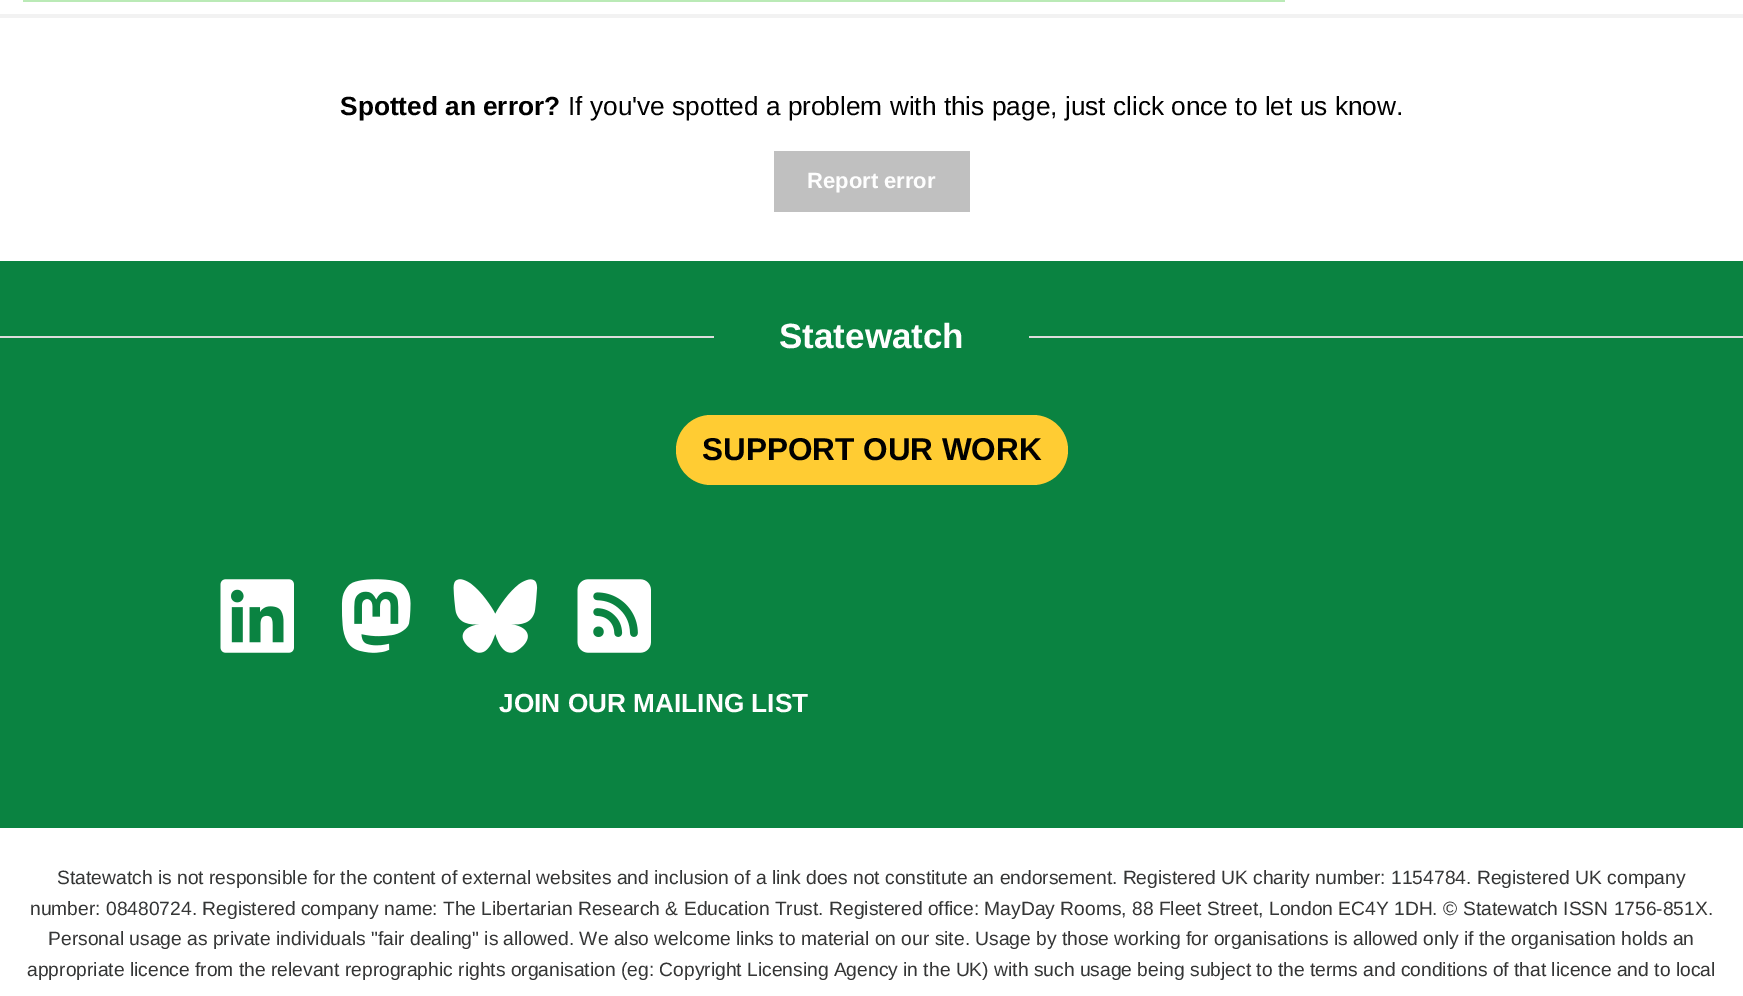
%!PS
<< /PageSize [1743 996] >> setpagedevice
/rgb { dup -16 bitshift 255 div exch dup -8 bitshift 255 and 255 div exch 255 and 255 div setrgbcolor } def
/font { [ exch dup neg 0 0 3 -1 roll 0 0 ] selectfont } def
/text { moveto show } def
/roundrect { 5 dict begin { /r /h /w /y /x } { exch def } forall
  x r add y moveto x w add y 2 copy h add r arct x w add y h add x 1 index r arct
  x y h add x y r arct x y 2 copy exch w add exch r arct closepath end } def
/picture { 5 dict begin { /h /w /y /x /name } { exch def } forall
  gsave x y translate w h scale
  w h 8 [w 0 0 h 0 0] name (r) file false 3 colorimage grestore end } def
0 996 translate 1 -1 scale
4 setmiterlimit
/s1 { /LiberationSans-Bold 26.25 font 16#000000 rgb } def
/s2 { /LiberationSans-Regular 26.25 font 16#000000 rgb } def
/s3 { /LiberationSans-Bold 22 font 16#FEFEFE rgb } def
/s4 { /LiberationSans-Bold 35 font 16#FEFEFE rgb } def
/s5 { /LiberationSans-Bold 31.5 font 16#000000 rgb } def
/s6 { /LiberationSans-Bold 26.25 font 16#FEFEFE rgb } def
/s7 { /LiberationSans-Regular 19.25 font 16#353636 rgb } def
16#FFFFFF rgb
0 0 1743 996 rectfill
16#F2F2F2 rgb
0 14 1743 4 rectfill
16#BAEAB6 rgb
23 0 1262 2 rectfill
s1
(Spotted an error?) 340 115 text
s2
(If you've spotted a problem with this page, just click once to let us know.) 568 115 text
16#C0C0C0 rgb
774 151 196 61 rectfill
s3
(Report error) 807 188 text
16#0A8341 rgb
0 261 1743 567 rectfill
16#DDDCDC rgb
0 336 714 2 rectfill
s4
(Statewatch) 779 348 text
16#DDDCDC rgb
1029 336 714 2 rectfill
16#FFCC33 rgb
676 415 392 70 35 roundrect fill
s5
(SUPPORT OUR WORK) 702 460 text
(pic1.raw) 220 579 74 74 picture
(pic2.raw) 341 579 70 74 picture
(pic3.raw) 453 579 85 74 picture
(pic4.raw) 577 579 74 74 picture
s6
(JOIN OUR MAILING LIST) 499 712 text
s7
(Statewatch is not responsible for the content of external websites and inclusion of a link does not constitute an endorsement. Registered UK charity number: 1154784. Registered UK company) 57 884 text
(number: 08480724. Registered company name: The Libertarian Research & Education Trust. Registered office: MayDay Rooms, 88 Fleet Street, London EC4Y 1DH. © Statewatch ISSN 1756-851X.) 30 915 text
(Personal usage as private individuals "fair dealing" is allowed. We also welcome links to material on our site. Usage by those working for organisations is allowed only if the organisation holds an) 48 945 text
(appropriate licence from the relevant reprographic rights organisation \(eg: Copyright Licensing Agency in the UK\) with such usage being subject to the terms and conditions of that licence and to local) 27 976 text
showpage
